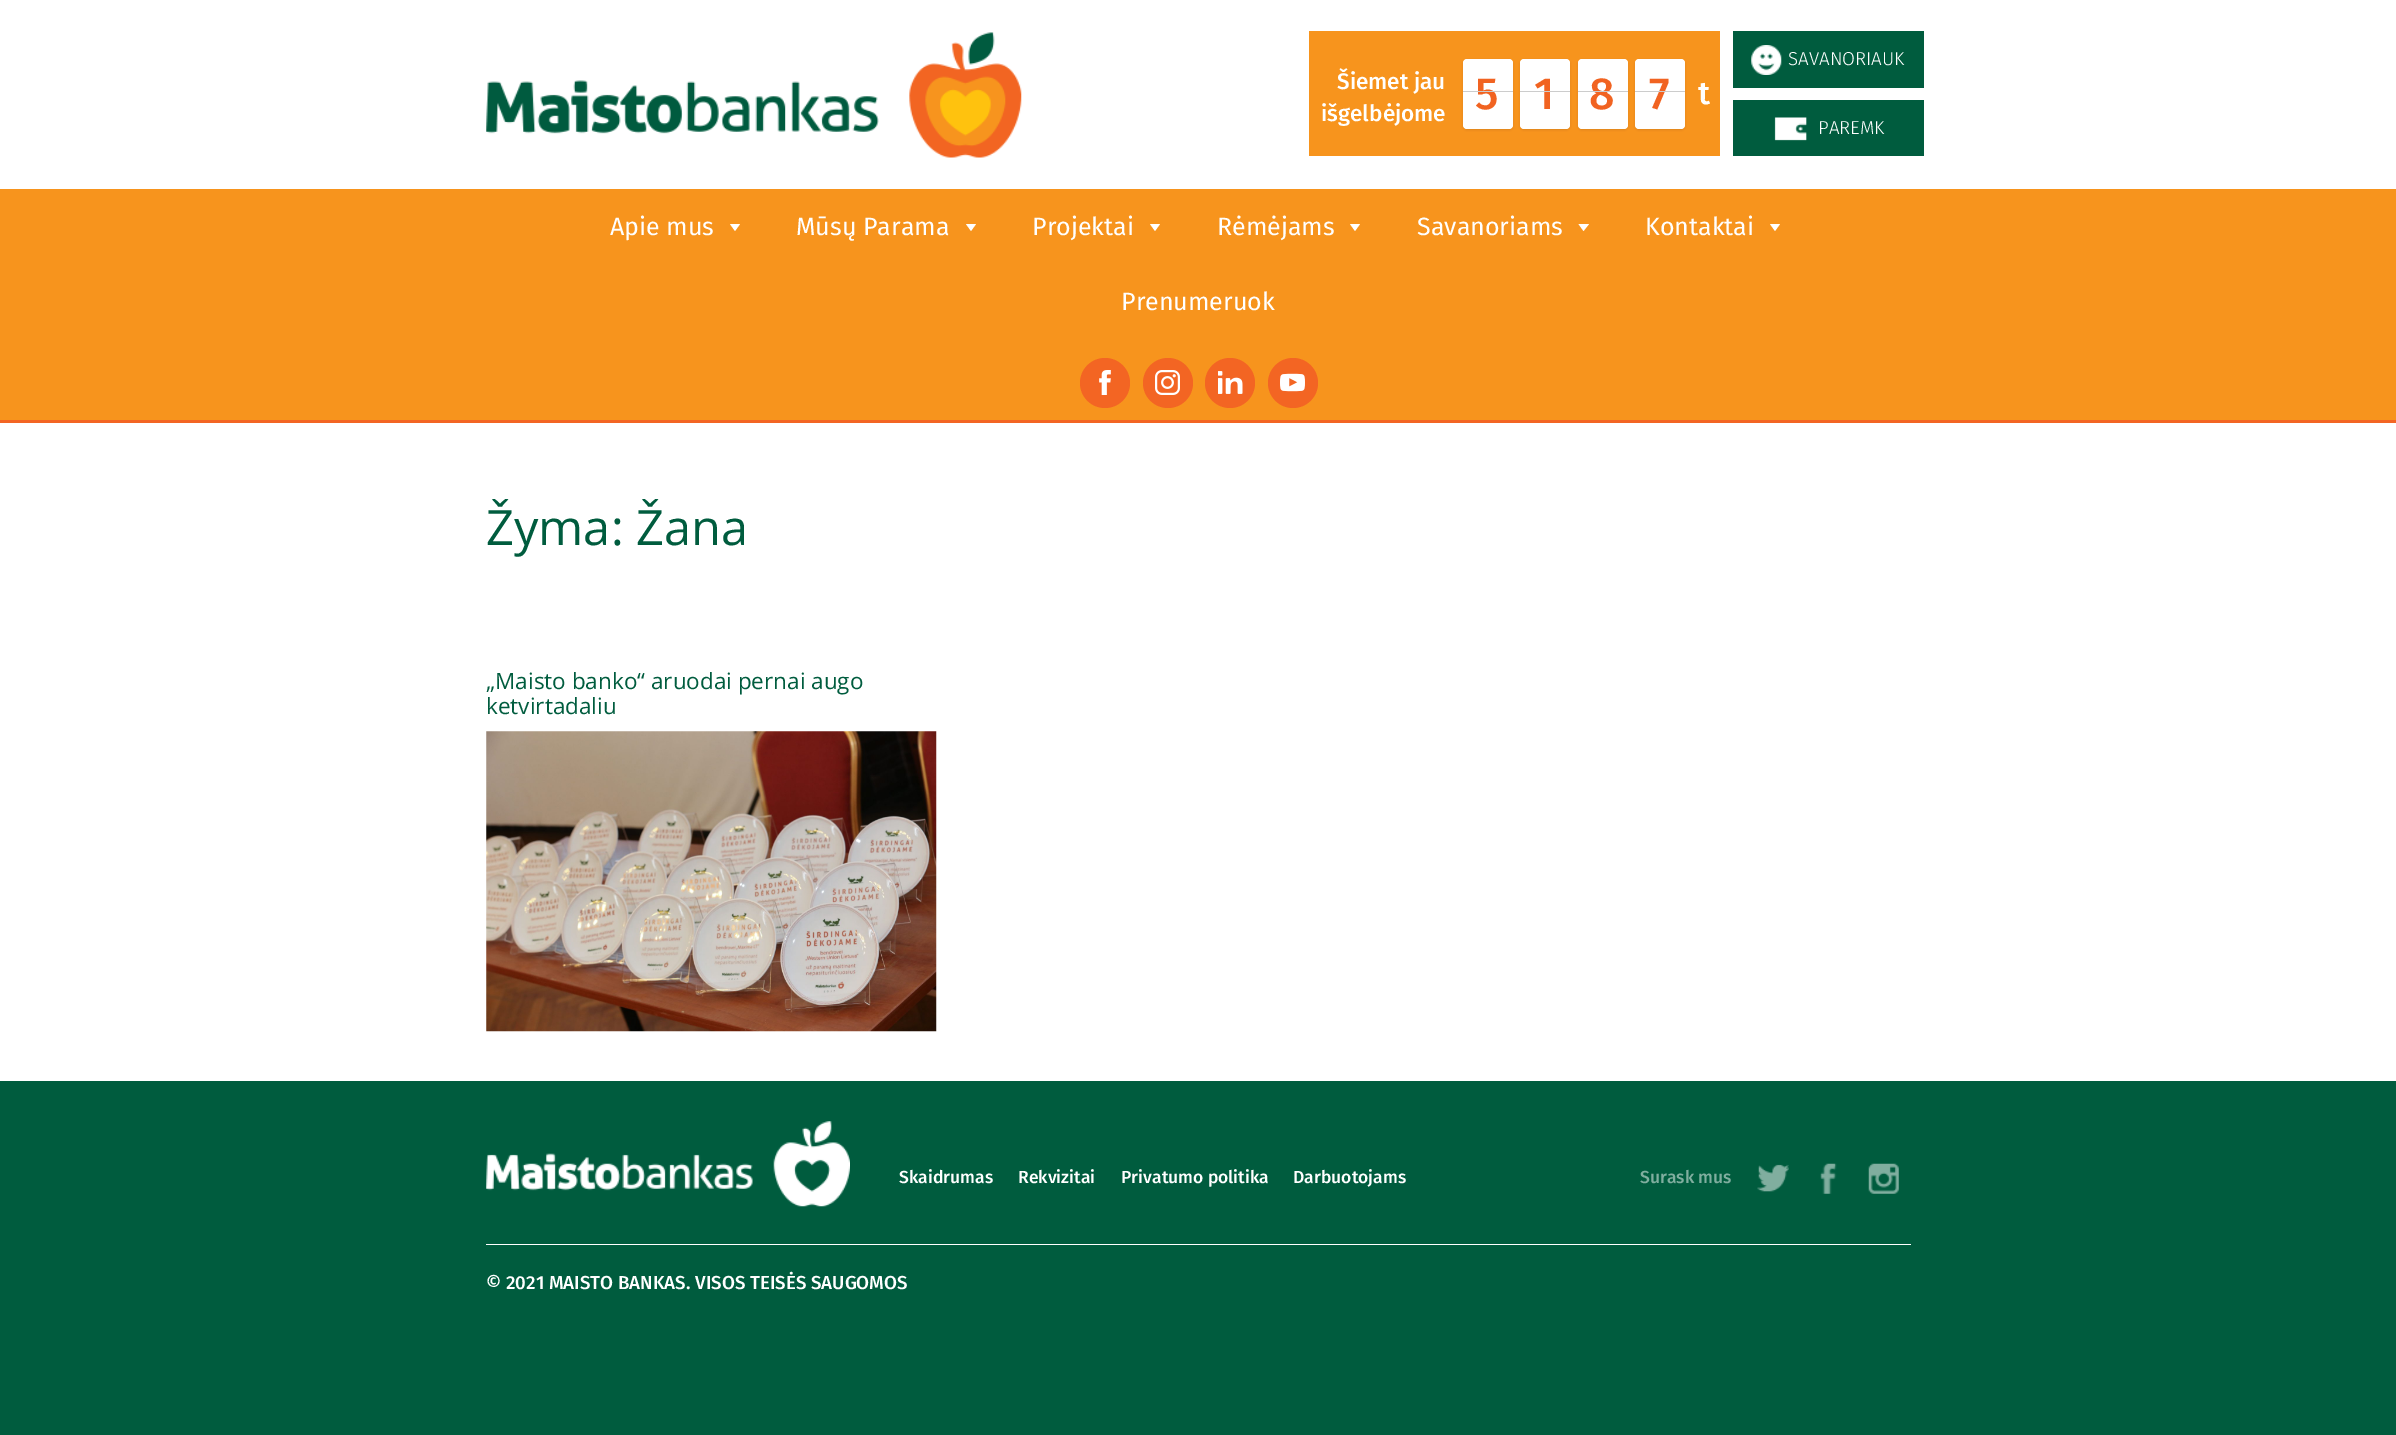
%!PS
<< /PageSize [2396 1435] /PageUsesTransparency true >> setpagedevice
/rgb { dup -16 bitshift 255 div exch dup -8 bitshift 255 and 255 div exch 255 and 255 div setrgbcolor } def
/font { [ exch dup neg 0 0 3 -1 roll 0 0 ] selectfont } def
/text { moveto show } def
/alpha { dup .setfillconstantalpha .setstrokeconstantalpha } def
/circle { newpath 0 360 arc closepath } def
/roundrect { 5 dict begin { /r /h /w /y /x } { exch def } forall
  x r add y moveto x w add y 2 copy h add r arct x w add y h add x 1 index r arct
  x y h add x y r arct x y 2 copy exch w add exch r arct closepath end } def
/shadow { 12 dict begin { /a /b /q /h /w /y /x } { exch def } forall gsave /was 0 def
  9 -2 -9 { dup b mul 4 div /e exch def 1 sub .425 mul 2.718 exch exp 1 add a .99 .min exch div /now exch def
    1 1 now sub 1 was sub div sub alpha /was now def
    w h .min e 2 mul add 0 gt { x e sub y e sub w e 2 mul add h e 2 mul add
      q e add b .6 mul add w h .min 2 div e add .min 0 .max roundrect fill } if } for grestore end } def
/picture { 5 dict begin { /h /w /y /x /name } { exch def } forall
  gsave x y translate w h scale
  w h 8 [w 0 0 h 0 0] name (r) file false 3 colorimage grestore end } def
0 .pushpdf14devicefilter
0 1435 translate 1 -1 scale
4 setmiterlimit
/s1 { /FiraSans-Medium 22.5 font 16#FFFFFF rgb } def
/s2 { /FiraSans-Medium 45 font 16#F16321 rgb } def
/s3 { /FiraSans-Medium 32 font 16#FFFFFF rgb } def
/s4 { /FiraSans-Light 18.75 font 16#FFFFFF rgb } def
/s5 { /FiraSans-Regular 25 font 16#FFFFFF rgb } def
/s6 { /OpenSans-Regular 48.75 font 16#005C3E rgb } def
/s7 { /OpenSans-Regular 22.5 font 16#005C3E rgb } def
/s8 { /FiraSans-Medium 17.5 font 16#FFFFFF rgb } def
/s9 { /FiraSans-Medium 17.5 font 16#80AE9F rgb } def
/s10 { /FiraSans-Medium 18.75 font 16#FFFFFF rgb } def
16#005C3E rgb
0 0 2396 1435 rectfill
16#FFFFFF rgb
0 0 2396 1081 rectfill
(pic1.raw) 486 32 536 126 picture
16#F7941D rgb
1309 31 411 125 rectfill
s1
(Šiemet jau) 1337 89 text
(išgelbėjome) 1321 121 text
16#000000 rgb
1463 60 50 70 4 1 0.1 shadow
16#FFFFFF rgb
1463 59 50 70 4 roundrect fill
s2
(5) 1475 109 text
16#CCCCCC rgb
1463 91 50 1 rectfill
16#000000 rgb
1520 60 50 70 4 1 0.1 shadow
16#FFFFFF rgb
1520 59 50 70 4 roundrect fill
s2
(1) 1534 109 text
16#CCCCCC rgb
1520 91 50 1 rectfill
16#000000 rgb
1578 60 50 70 4 1 0.1 shadow
16#FFFFFF rgb
1578 59 50 70 4 roundrect fill
s2
(8) 1589 109 text
16#CCCCCC rgb
1578 91 50 1 rectfill
16#000000 rgb
1635 60 50 70 4 1 0.1 shadow
16#FFFFFF rgb
1635 59 50 70 4 roundrect fill
s2
(7) 1649 109 text
16#CCCCCC rgb
1635 91 50 1 rectfill
s3
(t) 1698 104 text
16#005C3E rgb
1733 31 191 57 rectfill
(pic2.raw) 1751 45 31 30 picture
s4
(SAVANORIAUK) 1788 65 text
16#005C3E rgb
1733 100 191 56 rectfill
(pic3.raw) 1774 117 33 24 picture
s4
(PAREMK) 1818 134 text
16#F7941D rgb
0 189 2396 231 rectfill
16#F36523 rgb
0 420 2396 3 rectfill
s5
(Apie mus) 610 235 text
740 224 moveto 735 231 lineto 730 224 lineto closepath fill
(Mūsų Parama) 796 235 text
976 224 moveto 971 231 lineto 966 224 lineto closepath fill
(Projektai) 1032 235 text
1160 224 moveto 1155 231 lineto 1150 224 lineto closepath fill
(Rėmėjams) 1217 235 text
1360 224 moveto 1355 231 lineto 1350 224 lineto closepath fill
(Savanoriams) 1417 235 text
1589 224 moveto 1583.5 231 lineto 1578.5 224 lineto closepath fill
(Kontaktai) 1645 235 text
1780 224 moveto 1775 231 lineto 1770 224 lineto closepath fill
(Prenumeruok) 1121 310 text
16#F36523 rgb
1105 383 25 circle fill
(pic4.raw) 1099 370 12 25 picture
1168 383 25 circle fill
(pic5.raw) 1155 370 25 25 picture
1230 383 25 circle fill
(pic6.raw) 1218 371 25 23 picture
1293 383 25 circle fill
(pic7.raw) 1280 373 25 19 picture
s6
(Žyma: Žana) 486 545 text
s7
(„Maisto banko“ aruodai pernai augo) 486 689 text
(ketvirtadaliu) 486 714 text
(pic8.raw) 486 731 451 301 picture
(pic9.raw) 486 1121 364 86 picture
s8
(Skaidrumas) 899 1183 text
(Rekvizitai) 1018 1183 text
(Privatumo politika) 1121 1183 text
(Darbuotojams) 1293 1183 text
s9
(Surask mus) 1640 1183 text
(pic10.raw) 1757 1164 32 28 picture
(pic11.raw) 1820 1163 17 31 picture
(pic12.raw) 1868 1163 31 31 picture
16#FFFFFF rgb
486 1244 1425 1 rectfill
s10
(© 2021 MAISTO BANKAS. VISOS TEISĖS SAUGOMOS) 486 1289 text
.poppdf14devicefilter showpage
